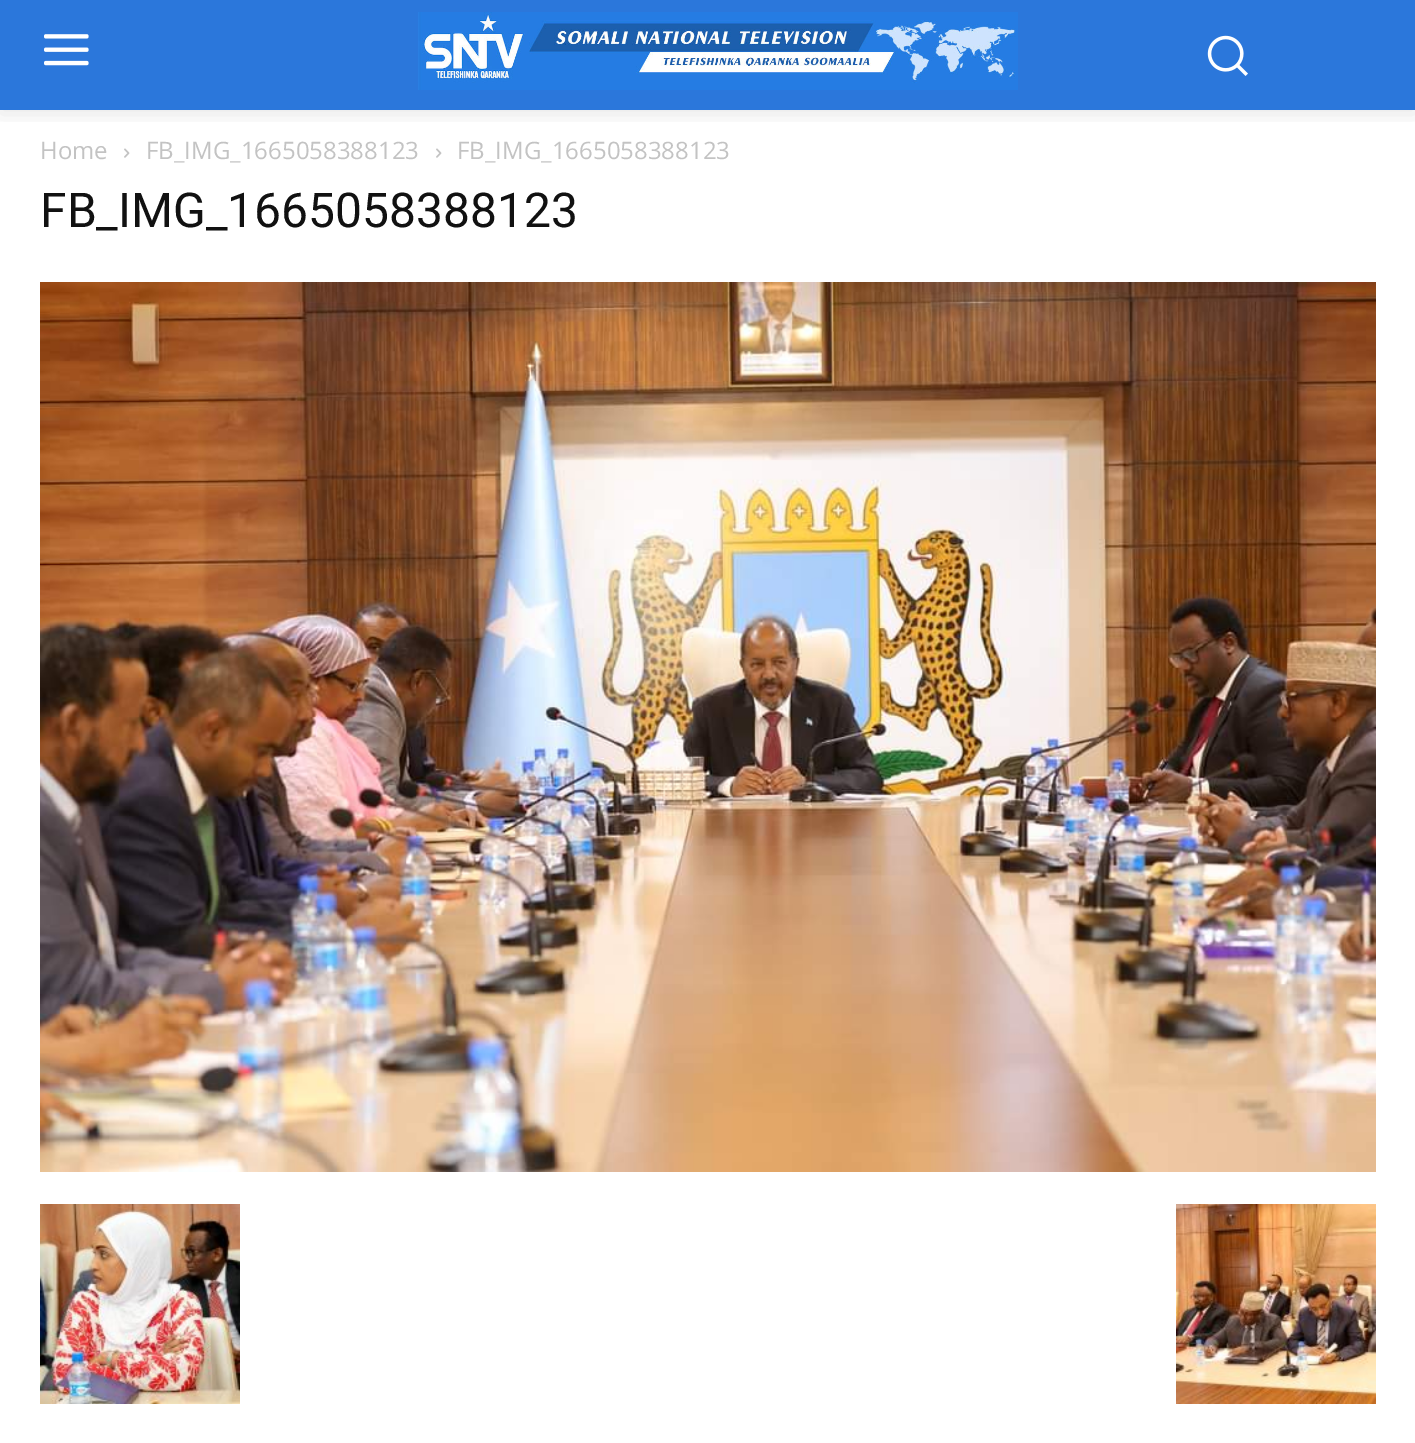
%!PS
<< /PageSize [1415 1443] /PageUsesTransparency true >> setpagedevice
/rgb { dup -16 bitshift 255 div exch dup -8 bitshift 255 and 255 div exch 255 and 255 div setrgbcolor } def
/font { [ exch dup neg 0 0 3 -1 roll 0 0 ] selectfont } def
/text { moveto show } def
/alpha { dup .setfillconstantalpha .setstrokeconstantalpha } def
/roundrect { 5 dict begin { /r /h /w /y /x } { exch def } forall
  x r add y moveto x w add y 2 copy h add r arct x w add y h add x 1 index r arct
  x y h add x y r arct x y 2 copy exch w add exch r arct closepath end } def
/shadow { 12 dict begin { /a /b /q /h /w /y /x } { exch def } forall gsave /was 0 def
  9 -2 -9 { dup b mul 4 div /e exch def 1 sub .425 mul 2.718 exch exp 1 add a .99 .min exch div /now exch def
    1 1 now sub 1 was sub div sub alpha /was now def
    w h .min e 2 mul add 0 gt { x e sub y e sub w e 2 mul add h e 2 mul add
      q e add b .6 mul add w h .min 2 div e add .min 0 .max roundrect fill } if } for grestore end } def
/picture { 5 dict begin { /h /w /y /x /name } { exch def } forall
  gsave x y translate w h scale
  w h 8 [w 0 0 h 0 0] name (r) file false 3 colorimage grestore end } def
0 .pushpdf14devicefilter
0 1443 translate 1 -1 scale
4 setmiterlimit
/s1 { /OpenSans-Regular 24 font 16#C3C3C3 rgb } def
/s2 { /Roboto-Regular 48 font 16#111111 rgb } def
16#FFFFFF rgb
0 0 1415 1443 rectfill
16#2B77DB rgb
0 0 1415 110 rectfill
(pic1.raw) 44 34 45 32 picture
(pic2.raw) 418 12 600 78 picture
(pic3.raw) 1207 35 41 41 picture
gsave
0 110 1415 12 rectclip
16#000000 rgb
0 4 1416 110 0 10 0.09 shadow
grestore
s1
(Home) 40 159 text
(pic4.raw) 124 148 6 10 picture
(FB_IMG_1665058388123) 146 159 text
(pic4.raw) 436 148 6 10 picture
(FB_IMG_1665058388123) 457 159 text
s2
(FB_IMG_1665058388123) 40 227 text
(pic5.raw) 40 282 1336 890 picture
(pic6.raw) 40 1204 200 200 picture
(pic7.raw) 1176 1204 200 200 picture
.poppdf14devicefilter showpage
